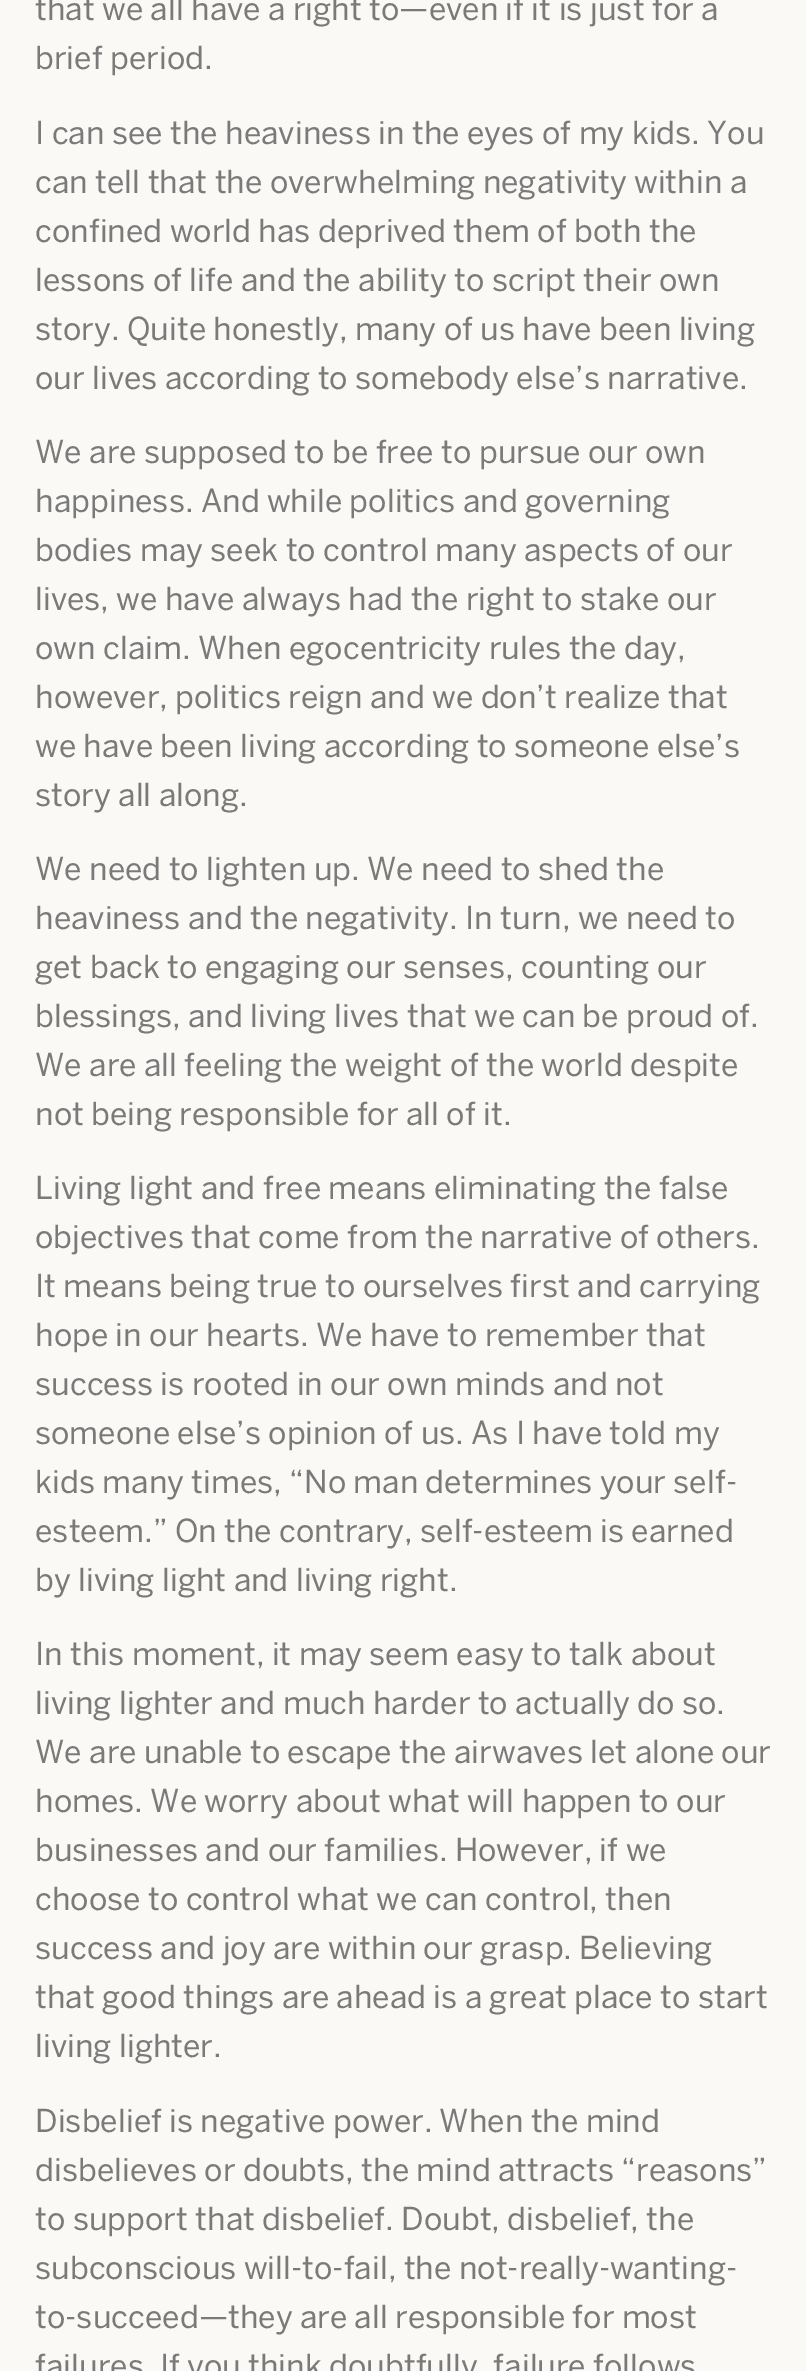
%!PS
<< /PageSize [806 2371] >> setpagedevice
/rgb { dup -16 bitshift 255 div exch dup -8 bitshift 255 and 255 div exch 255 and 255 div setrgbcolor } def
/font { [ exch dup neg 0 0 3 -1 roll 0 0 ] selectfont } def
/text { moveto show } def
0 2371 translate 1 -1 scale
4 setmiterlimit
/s1 { /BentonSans-Regular 31.5 font 16#7A7A7A rgb } def
16#FAF9F6 rgb
0 0 806 2371 rectfill
s1
(that we all have a right to—even if it is just for a) 35 20 text
(brief period.) 35 69 text
(I can see the heaviness in the eyes of my kids. You) 35 144 text
(can tell that the overwhelming negativity within a) 35 193 text
(confined world has deprived them of both the) 35 242 text
(lessons of life and the ability to script their own) 35 291 text
(story. Quite honestly, many of us have been living) 35 340 text
(our lives according to somebody else’s narrative.) 35 389 text
(We are supposed to be free to pursue our own) 35 463 text
(happiness. And while politics and governing) 35 512 text
(bodies may seek to control many aspects of our) 35 561 text
(lives, we have always had the right to stake our) 35 610 text
(own claim. When egocentricity rules the day,) 35 659 text
(however, politics reign and we don’t realize that) 35 708 text
(we have been living according to someone else’s) 35 757 text
(story all along.) 35 806 text
(We need to lighten up. We need to shed the) 35 880 text
(heaviness and the negativity. In turn, we need to) 35 929 text
(get back to engaging our senses, counting our) 35 978 text
(blessings, and living lives that we can be proud of.) 35 1027 text
(We are all feeling the weight of the world despite) 35 1076 text
(not being responsible for all of it.) 35 1125 text
(Living light and free means eliminating the false) 35 1199 text
(objectives that come from the narrative of others.) 35 1248 text
(It means being true to ourselves first and carrying) 35 1297 text
(hope in our hearts. We have to remember that) 35 1346 text
(success is rooted in our own minds and not) 35 1395 text
(someone else’s opinion of us. As I have told my) 35 1444 text
(kids many times, “No man determines your self-) 35 1493 text
(esteem.” On the contrary, self-esteem is earned) 35 1542 text
(by living light and living right.) 35 1591 text
(In this moment, it may seem easy to talk about) 35 1665 text
(living lighter and much harder to actually do so.) 35 1714 text
(We are unable to escape the airwaves let alone our) 35 1763 text
(homes. We worry about what will happen to our) 35 1812 text
(businesses and our families. However, if we) 35 1861 text
(choose to control what we can control, then) 35 1910 text
(success and joy are within our grasp. Believing) 35 1959 text
(that good things are ahead is a great place to start) 35 2008 text
(living lighter.) 35 2057 text
(Disbelief is negative power. When the mind) 35 2132 text
(disbelieves or doubts, the mind attracts “reasons”) 35 2181 text
(to support that disbelief. Doubt, disbelief, the) 35 2230 text
(subconscious will-to-fail, the not-really-wanting-) 35 2279 text
(to-succeed—they are all responsible for most) 35 2328 text
(failures. If you think doubtfully, failure follows) 35 2377 text
showpage
